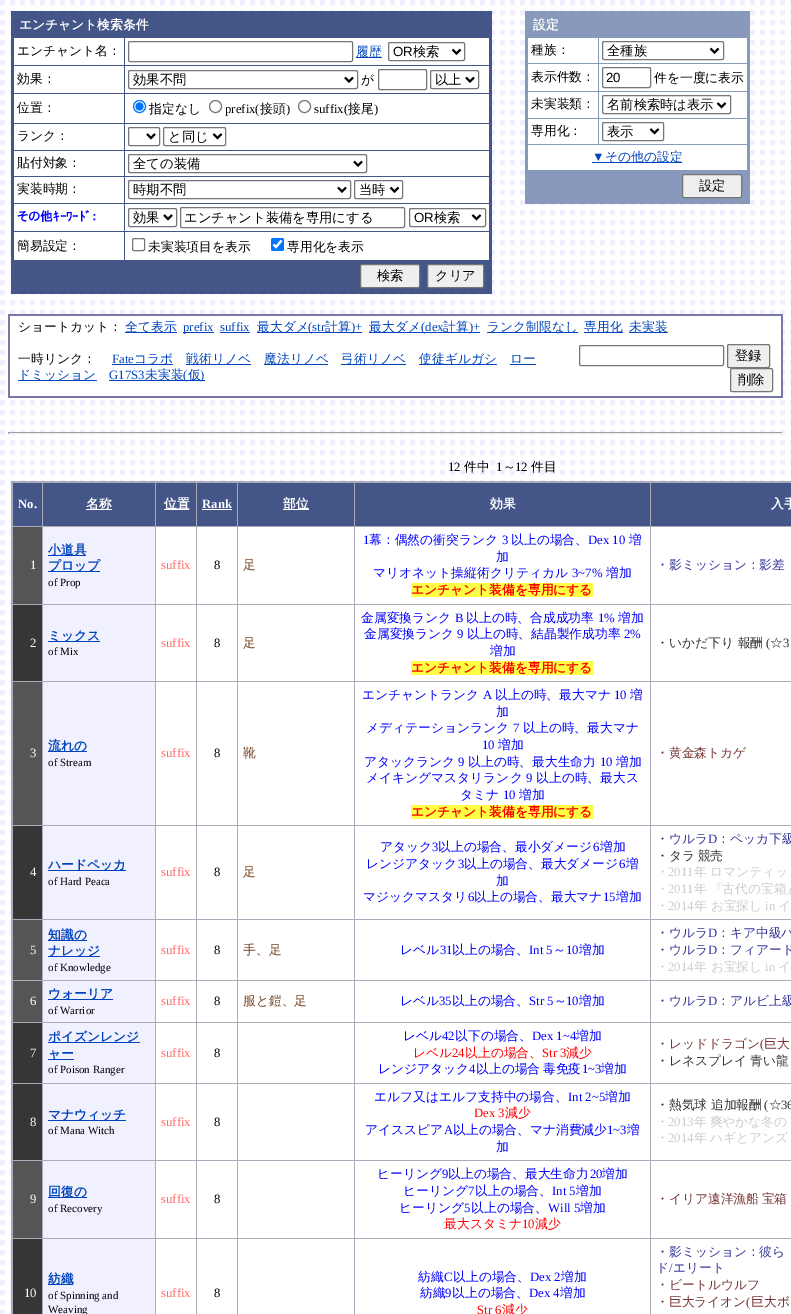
%!PS
<< /PageSize [791 1314] >> setpagedevice
/rgb { dup -16 bitshift 255 div exch dup -8 bitshift 255 and 255 div exch 255 and 255 div setrgbcolor } def
/font { [ exch dup neg 0 0 3 -1 roll 0 0 ] selectfont } def
/text { moveto show } def
/circle { newpath 0 360 arc closepath } def
/roundrect { 5 dict begin { /r /h /w /y /x } { exch def } forall
  x r add y moveto x w add y 2 copy h add r arct x w add y h add x 1 index r arct
  x y h add x y r arct x y 2 copy exch w add exch r arct closepath end } def
/picture { 5 dict begin { /h /w /y /x /name } { exch def } forall
  gsave x y translate w h scale
  w h 8 [w 0 0 h 0 0] name (r) file false 3 colorimage grestore end } def
0 1314 translate 1 -1 scale
4 setmiterlimit
/s1 { /WenQuanYiZenHei-Bold 12.75 font 16#FFFFFF rgb } def
/s2 { /WenQuanYiZenHei-Medium 12.75 font 16#000000 rgb } def
/s3 { /WenQuanYiZenHei-Medium 12.75 font 16#0044BB rgb } def
/s4 { /LiberationSans-Regular 13.3 font 16#000000 rgb } def
/s5 { /WenQuanYiZenHei-Medium 13.3 font 16#000000 rgb } def
/s6 { /LiberationSerif-Regular 12.75 font 16#000000 rgb } def
/s7 { /IPAPGothic-Bold 12.75 font 16#0000FF rgb } def
/s8 { /LiberationSerif-Regular 12.75 font 16#0044BB rgb } def
/s9 { /LiberationSerif-Bold 12.75 font 16#FFFFFF rgb } def
/s10 { /LiberationSerif-Regular 12.75 font 16#FFFFFF rgb } def
/s11 { /WenQuanYiZenHei-Bold 12.75 font 16#0044BB rgb } def
/s12 { /LiberationSerif-Regular 11 font 16#000000 rgb } def
/s13 { /LiberationSerif-Regular 12.75 font 16#FF6666 rgb } def
/s14 { /WenQuanYiZenHei-Medium 12.75 font 16#774422 rgb } def
/s15 { /LiberationSerif-Regular 12.75 font 16#0000FF rgb } def
/s16 { /WenQuanYiZenHei-Medium 12.75 font 16#0000FF rgb } def
/s17 { /WenQuanYiZenHei-Bold 12.75 font 16#FF0000 rgb } def
/s18 { /WenQuanYiZenHei-Medium 12.75 font 16#333333 rgb } def
/s19 { /LiberationSerif-Regular 12.75 font 16#333333 rgb } def
/s20 { /WenQuanYiZenHei-Medium 12.75 font 16#773333 rgb } def
/s21 { /WenQuanYiZenHei-Medium 12.75 font 16#333399 rgb } def
/s22 { /LiberationSerif-Regular 12.75 font 16#333399 rgb } def
/s23 { /WenQuanYiZenHei-Medium 12.75 font 16#CCCCCC rgb } def
/s24 { /LiberationSerif-Regular 12.75 font 16#CCCCCC rgb } def
/s25 { /WenQuanYiZenHei-Medium 12.75 font 16#FF0000 rgb } def
/s26 { /LiberationSerif-Regular 12.75 font 16#FF0000 rgb } def
/s27 { /LiberationSerif-Regular 12.75 font 16#773333 rgb } def
16#FFFFFF rgb
0 0 791 1314 rectfill
(pic1.raw) 0 0 791 1314 picture
16#445588 rgb
11 11 481 283 rectfill
s1
(エンチャント検索条件) 19 29 text
14 38 110 27 rectfill
s2
(エンチャント名：) 17 55 text
16#FFFFFF rgb
125 38 364 27 rectfill
16#767676 rgb
128.5 41.5 224 20 1.5 roundrect stroke
16#0044BB rgb
356 57 26 1 rectfill
(履歴) 356 56 text
16#767676 rgb
388.5 42.5 76 18 1.5 roundrect stroke
16#000000 rgb
2 setlinewidth
452.5 49.5 moveto 456.5 53.5 lineto 460.5 49.5 lineto stroke
s4
(OR) 393 56 text
s5
(検索) 413 56 text
16#FFFFFF rgb
14 66 110 27 rectfill
s2
(効果：) 17 83 text
16#FFFFFF rgb
125 66 364 27 rectfill
16#767676 rgb
1 setlinewidth
128.5 70.5 229 18 1.5 roundrect stroke
16#000000 rgb
2 setlinewidth
345 77.5 moveto 349 81.5 lineto 353 77.5 lineto stroke
s5
(効果不問) 133 84 text
s2
(が) 361 84 text
16#767676 rgb
1 setlinewidth
378.5 69.5 48 20 1.5 roundrect stroke
430.5 70.5 48 18 1.5 roundrect stroke
16#000000 rgb
2 setlinewidth
466 77.5 moveto 470 81.5 lineto 474 77.5 lineto stroke
s5
(以上) 435 84 text
16#FFFFFF rgb
14 94 110 29 rectfill
s2
(位置：) 17 112 text
16#FFFFFF rgb
125 94 364 29 rectfill
16#0075FF rgb
1 setlinewidth
139.5 106.5 6 circle stroke
139.5 106.5 4 circle fill
s2
(指定なし) 149 113 text
16#767676 rgb
215.5 106.5 6 circle stroke
s6
(prefix\() 225 113 text
s2
(接頭) 260 113 text
s6
(\)) 286 113 text
16#767676 rgb
304.5 106.5 6 circle stroke
s6
(suffix\() 314 113 text
s2
(接尾) 348 113 text
s6
(\)) 374 113 text
16#FFFFFF rgb
14 124 110 26 rectfill
s2
(ランク：) 17 140 text
16#FFFFFF rgb
125 124 364 26 rectfill
16#767676 rgb
128.5 127.5 31 18 1.5 roundrect stroke
16#000000 rgb
2 setlinewidth
147 134 moveto 151 138 lineto 155 134 lineto stroke
16#767676 rgb
1 setlinewidth
163.5 127.5 62 18 1.5 roundrect stroke
16#000000 rgb
2 setlinewidth
213.5 134 moveto 217.5 138 lineto 221.5 134 lineto stroke
s5
(と同じ) 168 141 text
16#FFFFFF rgb
14 151 110 25 rectfill
s2
(貼付対象：) 17 167 text
16#FFFFFF rgb
125 151 364 25 rectfill
16#767676 rgb
1 setlinewidth
128.5 154.5 238 18 1.5 roundrect stroke
16#000000 rgb
2 setlinewidth
354 161.5 moveto 358 165.5 lineto 362 161.5 lineto stroke
s5
(全ての装備) 133 168 text
16#FFFFFF rgb
14 177 110 26 rectfill
s2
(実装時期：) 17 193 text
16#FFFFFF rgb
125 177 364 26 rectfill
16#767676 rgb
1 setlinewidth
128.5 180.5 222 18 1.5 roundrect stroke
16#000000 rgb
2 setlinewidth
338 187.5 moveto 342 191.5 lineto 346 187.5 lineto stroke
s5
(時期不問) 133 194 text
16#767676 rgb
1 setlinewidth
354.5 180.5 48 18 1.5 roundrect stroke
16#000000 rgb
2 setlinewidth
390.5 187.5 moveto 394.5 191.5 lineto 398.5 187.5 lineto stroke
(当時) 359 194 text
16#FFFFFF rgb
14 204 110 27 rectfill
s7
(その他ｷｰﾜｰﾄﾞ：) 17 221 text
16#FFFFFF rgb
125 204 364 27 rectfill
16#767676 rgb
1 setlinewidth
128.5 208.5 48 18 1.5 roundrect stroke
16#000000 rgb
2 setlinewidth
164 215 moveto 168 219 lineto 172 215 lineto stroke
s5
(効果) 133 222 text
16#767676 rgb
1 setlinewidth
180.5 207.5 224 20 1.5 roundrect stroke
s5
(エンチャント装備を専用にする) 184 222 text
16#767676 rgb
409.5 208.5 76 18 1.5 roundrect stroke
16#000000 rgb
2 setlinewidth
472.5 215 moveto 476.5 219 lineto 480.5 215 lineto stroke
s4
(OR) 414 222 text
s5
(検索) 434 222 text
16#FFFFFF rgb
14 232 110 28 rectfill
s2
(簡易設定：) 17 250 text
16#FFFFFF rgb
125 232 364 28 rectfill
16#767676 rgb
1 setlinewidth
132.5 238.5 12 12 1.5 roundrect stroke
s2
(未実装項目を表示) 148 251 text
16#0075FF rgb
271 238 13 13 2 roundrect fill
16#FFFFFF rgb
2.1 setlinewidth
273.5 244.5 moveto 276 247 lineto 281.5 240.5 lineto stroke
s2
(専用化を表示) 287 251 text
16#EFEFEF rgb
360.5 264.5 59 23 1.5 roundrect gsave fill grestore
16#767676 rgb
1 setlinewidth
stroke
s5
(検索) 377 280 text
16#EFEFEF rgb
427.5 264.5 56 23 1.5 roundrect gsave fill grestore
16#767676 rgb
stroke
s5
(クリア) 435 280 text
16#8899BB rgb
525 11 225 193 rectfill
s1
(設定) 533 29 text
528 38 70 25 rectfill
s2
(種族：) 531 54 text
16#FFFFFF rgb
599 38 148 25 rectfill
16#767676 rgb
602.5 41.5 121 18 1.5 roundrect stroke
16#000000 rgb
2 setlinewidth
710.5 48.5 moveto 714.5 52.5 lineto 718.5 48.5 lineto stroke
s5
(全種族) 607 55 text
16#FFFFFF rgb
528 64 70 27 rectfill
s2
(表示件数：) 531 81 text
16#FFFFFF rgb
599 64 148 27 rectfill
16#767676 rgb
1 setlinewidth
602.5 67.5 48 20 1.5 roundrect stroke
s4
(20) 606 82 text
s2
(件を一度に表示) 654 82 text
16#FFFFFF rgb
528 92 70 26 rectfill
s2
(未実装類：) 531 108 text
16#FFFFFF rgb
599 92 148 26 rectfill
16#767676 rgb
602.5 95.5 128 18 1.5 roundrect stroke
16#000000 rgb
2 setlinewidth
717.5 103 moveto 721.5 107 lineto 725.5 103 lineto stroke
s5
(名前検索時は表示) 607 109 text
16#FFFFFF rgb
528 119 70 25 rectfill
s2
(専用化：) 531 135 text
16#FFFFFF rgb
599 119 148 25 rectfill
16#767676 rgb
1 setlinewidth
602.5 122.5 61 18 1.5 roundrect stroke
16#000000 rgb
2 setlinewidth
650.5 129 moveto 654.5 133 lineto 658.5 129 lineto stroke
s5
(表示) 607 136 text
16#FFFFFF rgb
528 145 219 25 rectfill
s8
(▼) 592 161 text
592 162 90 1 rectfill
s3
(その他の設定) 605 161 text
16#EFEFEF rgb
682.5 174.5 59 23 1.5 roundrect gsave fill grestore
16#767676 rgb
1 setlinewidth
stroke
s5
(設定) 699 190 text
16#7777AA rgb
8 314 775 2 rectfill
781 314 2 84 rectfill
8 396 775 2 rectfill
8 314 2 84 rectfill
16#FFFFFF rgb
10 320 771 15 rectfill
s2
(ショートカット：) 18 331 text
16#0044BB rgb
125 332 52 1 rectfill
(全て表示) 125 331 text
183 332 31 1 rectfill
s8
(prefix) 183 331 text
(suffix) 220 331 text
220 332 30 1 rectfill
257 332 105 1 rectfill
s3
(最大ダメ) 257 331 text
s8
(\(str) 308 331 text
s3
(計算) 325 331 text
s8
(\)+) 351 331 text
369 332 111 1 rectfill
s3
(最大ダメ) 369 331 text
s8
(\(dex) 421 331 text
s3
(計算) 443 331 text
s8
(\)+) 469 331 text
487 332 91 1 rectfill
s3
(ランク制限なし) 487 331 text
584 332 39 1 rectfill
(専用化) 584 331 text
629 332 39 1 rectfill
(未実装) 629 331 text
16#FFFFFF rgb
10 340 771 55 rectfill
s2
(一時リンク：) 18 363 text
s8
(Fate) 112 363 text
112 364 61 1 rectfill
s3
(コラボ) 134 363 text
186 364 65 1 rectfill
(戦術リノベ) 186 363 text
264 364 64 1 rectfill
(魔法リノベ) 264 363 text
341 364 65 1 rectfill
(弓術リノベ) 341 363 text
419 364 78 1 rectfill
(使徒ギルガシ) 419 363 text
(ロー) 510 363 text
510 364 26 1 rectfill
18 380 79 1 rectfill
(ドミッション) 18 379 text
s8
(G17S3) 109 379 text
109 380 96 1 rectfill
s3
(未実装) 145 379 text
s8
(\() 183 379 text
s3
(仮) 188 379 text
s8
(\)) 200 379 text
16#767676 rgb
579.5 345.5 144 20 1.5 roundrect stroke
16#EFEFEF rgb
727.5 344.5 42 23 1.5 roundrect gsave fill grestore
16#767676 rgb
stroke
s5
(登録) 735 360 text
16#EFEFEF rgb
730.5 368.5 42 23 1.5 roundrect gsave fill grestore
16#767676 rgb
stroke
s5
(削除) 738 384 text
16#9F9F9F rgb
8 432 775 1 rectfill
16#EEEEEE rgb
782 432 1 2 rectfill
8 433 775 1 rectfill
16#9F9F9F rgb
8 432 1 2 rectfill
s6
(12) 448 471 text
s2
(件中) 464 471 text
s6
(1) 496 471 text
s2
(～) 503 471 text
s6
(12) 515 471 text
s2
(件目) 531 471 text
16#FFFFFF rgb
160 530 631 784 rectfill
16#AAAABB rgb
650 526 141 1 rectfill
650 604 141 1 rectfill
650 681 141 1 rectfill
650 825 141 1 rectfill
650 919 141 1 rectfill
650 980 141 1 rectfill
650 1022 141 1 rectfill
650 1083 141 1 rectfill
650 1160 141 1 rectfill
650 1238 141 1 rectfill
650 1238 1 76 rectfill
354 1238 297 1 rectfill
650 1160 1 79 rectfill
354 1160 297 1 rectfill
650 1083 1 78 rectfill
354 1083 297 1 rectfill
650 1022 1 62 rectfill
354 1022 297 1 rectfill
650 980 1 43 rectfill
354 980 297 1 rectfill
650 919 1 62 rectfill
354 919 297 1 rectfill
650 825 1 95 rectfill
354 825 297 1 rectfill
650 681 1 145 rectfill
354 681 297 1 rectfill
650 604 1 78 rectfill
354 604 297 1 rectfill
650 526 1 79 rectfill
354 526 297 1 rectfill
354 1238 1 76 rectfill
237 1238 118 1 rectfill
354 1160 1 79 rectfill
237 1160 118 1 rectfill
354 1083 1 78 rectfill
237 1083 118 1 rectfill
354 1022 1 62 rectfill
237 1022 118 1 rectfill
354 980 1 43 rectfill
237 980 118 1 rectfill
354 919 1 62 rectfill
237 919 118 1 rectfill
354 825 1 95 rectfill
237 825 118 1 rectfill
354 681 1 145 rectfill
237 681 118 1 rectfill
354 604 1 78 rectfill
237 604 118 1 rectfill
354 526 1 79 rectfill
237 526 118 1 rectfill
237 1238 1 76 rectfill
196 1238 42 1 rectfill
237 1160 1 79 rectfill
196 1160 42 1 rectfill
237 1083 1 78 rectfill
196 1083 42 1 rectfill
237 1022 1 62 rectfill
196 1022 42 1 rectfill
237 980 1 43 rectfill
196 980 42 1 rectfill
237 919 1 62 rectfill
196 919 42 1 rectfill
237 825 1 95 rectfill
196 825 42 1 rectfill
237 681 1 145 rectfill
196 681 42 1 rectfill
237 604 1 78 rectfill
196 604 42 1 rectfill
237 526 1 79 rectfill
196 526 42 1 rectfill
196 1238 1 76 rectfill
155 1238 42 1 rectfill
196 1160 1 79 rectfill
155 1160 42 1 rectfill
196 1083 1 78 rectfill
155 1083 42 1 rectfill
196 1022 1 62 rectfill
155 1022 42 1 rectfill
196 980 1 43 rectfill
155 980 42 1 rectfill
196 919 1 62 rectfill
155 919 42 1 rectfill
196 825 1 95 rectfill
155 825 42 1 rectfill
196 681 1 145 rectfill
155 681 42 1 rectfill
196 604 1 78 rectfill
155 604 42 1 rectfill
196 526 1 79 rectfill
155 526 42 1 rectfill
155 1238 1 76 rectfill
42 1238 114 1 rectfill
155 1160 1 79 rectfill
42 1160 114 1 rectfill
155 1083 1 78 rectfill
42 1083 114 1 rectfill
155 1022 1 62 rectfill
42 1022 114 1 rectfill
155 980 1 43 rectfill
42 980 114 1 rectfill
155 919 1 62 rectfill
42 919 114 1 rectfill
155 825 1 95 rectfill
42 825 114 1 rectfill
155 681 1 145 rectfill
42 681 114 1 rectfill
155 604 1 78 rectfill
42 604 114 1 rectfill
155 526 1 79 rectfill
42 526 114 1 rectfill
42 1238 1 76 rectfill
12 1238 31 1 rectfill
42 1160 1 79 rectfill
12 1160 31 1 rectfill
42 1083 1 78 rectfill
12 1083 31 1 rectfill
42 1022 1 62 rectfill
12 1022 31 1 rectfill
42 980 1 43 rectfill
12 980 31 1 rectfill
42 919 1 62 rectfill
12 919 31 1 rectfill
42 825 1 95 rectfill
12 825 31 1 rectfill
42 681 1 145 rectfill
12 681 31 1 rectfill
42 604 1 78 rectfill
12 604 31 1 rectfill
42 526 1 79 rectfill
12 526 31 1 rectfill
42 481 1 46 rectfill
155 481 1 46 rectfill
196 481 1 46 rectfill
237 481 1 46 rectfill
354 481 1 46 rectfill
650 481 1 46 rectfill
11 481 780 2 rectfill
11 481 2 833 rectfill
16#445588 rgb
13 483 29 43 rectfill
s9
(No.) 18 508 text
16#445588 rgb
43 483 112 43 rectfill
16#FFFFFF rgb
86 509 26 1 rectfill
s1
(名称) 86 508 text
16#445588 rgb
156 483 40 43 rectfill
16#FFFFFF rgb
164 509 25 1 rectfill
(位置) 164 508 text
16#445588 rgb
197 483 40 43 rectfill
s9
(Rank) 202 508 text
202 509 30 1 rectfill
16#445588 rgb
238 483 116 43 rectfill
16#FFFFFF rgb
283 509 26 1 rectfill
s1
(部位) 283 508 text
16#445588 rgb
355 483 295 43 rectfill
s1
(効果) 490 508 text
16#445588 rgb
651 483 140 43 rectfill
s1
(入手) 771 508 text
16#555555 rgb
13 527 29 77 rectfill
s10
(1) 30 569 text
16#F0F0FF rgb
43 527 112 77 rectfill
16#0044BB rgb
48 555 38 1 rectfill
s11
(小道具) 48 554 text
48 571 52 1 rectfill
(プロップ) 48 570 text
s12
(of Prop) 48 586 text
s13
(suffix) 161 569 text
s6
(8) 214 569 text
s14
(足) 243 569 text
s15
(1) 363 544 text
s16
(幕：偶然の衝突ランク) 369 544 text
s15
(3) 502 544 text
s16
(以上の場合、) 511 544 text
s15
(Dex 10) 588 544 text
s16
(増) 629 544 text
(加) 496 561 text
(マリオネット操縦術クリティカル) 373 577 text
s15
(3~7%) 572 577 text
s16
(増加) 606 577 text
16#FFFF44 rgb
411 583 182 14 rectfill
s17
(エンチャント装備を専用にする) 411 594 text
/WenQuanYiZenHei-Medium 12.75 font
16#333399 rgb
656 569 moveto -1 0 32 (・影ミッション：影差) widthshow
16#363636 rgb
13 605 29 76 rectfill
s10
(2) 30 647 text
16#F0F0FF rgb
43 605 112 76 rectfill
16#0044BB rgb
48 641 52 1 rectfill
s11
(ミックス) 48 640 text
s12
(of Mix) 48 655 text
s13
(suffix) 161 647 text
s6
(8) 214 647 text
s14
(足) 243 647 text
s16
(金属変換ランク) 361 622 text
s15
(B) 455 622 text
s16
(以上の時、合成成功率) 466 622 text
s15
(1%) 598 622 text
s16
(増加) 618 622 text
(金属変換ランク) 364 638 text
s15
(9) 457 638 text
s16
(以上の時、結晶製作成功率) 467 638 text
s15
(2%) 624 638 text
s16
(増加) 490 655 text
16#FFFF44 rgb
411 661 182 14 rectfill
s17
(エンチャント装備を専用にする) 411 672 text
s18
(・いかだ下り 報酬) 656 647 text
s19
(\() 766 647 text
s18
(☆) 770 647 text
s19
(3) 783 647 text
16#555555 rgb
13 682 29 143 rectfill
s10
(3) 30 757 text
16#F0F0FF rgb
43 682 112 143 rectfill
16#0044BB rgb
48 751 39 1 rectfill
s11
(流れの) 48 750 text
s12
(of Stream) 48 766 text
s13
(suffix) 161 757 text
s6
(8) 214 757 text
s14
(靴) 243 757 text
s16
(エンチャントランク) 362 699 text
s15
(A) 483 699 text
s16
(以上の時、最大マナ) 495 699 text
s15
(10) 614 699 text
s16
(増) 630 699 text
(加) 496 716 text
(メディテーションランク) 366 732 text
s15
(7) 513 732 text
s16
(以上の時、最大マナ) 523 732 text
s15
(10) 482 749 text
s16
(増加) 498 749 text
(アタックランク) 364 766 text
s15
(9) 458 766 text
s16
(以上の時、最大生命力) 468 766 text
s15
(10) 600 766 text
s16
(増加) 616 766 text
(メイキングマスタリランク) 366 782 text
s15
(9) 526 782 text
s16
(以上の時、最大ス) 536 782 text
(タミナ) 460 799 text
s15
(10) 503 799 text
s16
(増加) 519 799 text
16#FFFF44 rgb
411 805 182 14 rectfill
s17
(エンチャント装備を専用にする) 411 816 text
s20
(・黄金森トカゲ) 656 757 text
16#363636 rgb
13 826 29 93 rectfill
s10
(4) 30 876 text
16#F0F0FF rgb
43 826 112 93 rectfill
16#0044BB rgb
48 870 78 1 rectfill
s11
(ハードペッカ) 48 869 text
s12
(of Hard Peaca) 48 885 text
s13
(suffix) 161 876 text
s6
(8) 214 876 text
s14
(足) 243 876 text
s16
(アタック) 380 851 text
s15
(3) 432 851 text
s16
(以上の場合、最小ダメージ) 438 851 text
s15
(6) 593 851 text
s16
(増加) 600 851 text
(レンジアタック) 366 868 text
s15
(3) 458 868 text
s16
(以上の場合、最大ダメージ) 464 868 text
s15
(6) 619 868 text
s16
(増) 626 868 text
(加) 496 885 text
(マジックマスタリ) 363 901 text
s15
(6) 468 901 text
s16
(以上の場合、最大マナ) 474 901 text
s15
(15) 603 901 text
s16
(増加) 616 901 text
s21
(・ウルラ) 656 843 text
s22
(D) 708 843 text
s21
(：ペッカ下級) 717 843 text
16#333333 rgb
656 860 moveto -1 0 32 (・タラ 競売) widthshow
s23
(・) 656 876 text
s24
(2011) 668 876 text
/WenQuanYiZenHei-Medium 12.75 font
694 876 moveto -1 0 32 (年 ロマンティッ) widthshow
(・) 656 893 text
s24
(2011) 668 893 text
/WenQuanYiZenHei-Medium 12.75 font
694 893 moveto -1 0 32 (年 『古代の宝箱』) widthshow
(・) 656 910 text
s24
(2014) 668 910 text
s23
(年 お宝探し) 694 910 text
s24
(in) 765 910 text
s23
(イ) 778 910 text
16#555555 rgb
13 920 29 60 rectfill
s10
(5) 30 954 text
16#F0F0FF rgb
43 920 112 60 rectfill
16#0044BB rgb
48 940 39 1 rectfill
s11
(知識の) 48 939 text
48 956 52 1 rectfill
(ナレッジ) 48 955 text
s12
(of Knowledge) 48 971 text
s13
(suffix) 161 954 text
s6
(8) 214 954 text
s14
(手、足) 243 954 text
s16
(レベル) 400 954 text
s15
(31) 440 954 text
s16
(以上の場合、) 452 954 text
s15
(Int 5) 529 954 text
s16
(～) 553 954 text
s15
(10) 566 954 text
s16
(増加) 579 954 text
s21
(・ウルラ) 656 937 text
s22
(D) 708 937 text
s21
(：キア中級ハ) 717 937 text
(・ウルラ) 656 954 text
s22
(D) 708 954 text
s21
(：フィアード) 717 954 text
s23
(・) 656 971 text
s24
(2014) 668 971 text
s23
(年 お宝探し) 694 971 text
s24
(in) 765 971 text
s23
(イ) 778 971 text
16#555555 rgb
13 981 29 41 rectfill
s10
(6) 30 1005 text
16#F0F0FF rgb
43 981 112 41 rectfill
16#0044BB rgb
48 999 65 1 rectfill
s11
(ウォーリア) 48 998 text
s12
(of Warrior) 48 1014 text
s13
(suffix) 161 1005 text
s6
(8) 214 1005 text
s14
(服と鎧、足) 243 1005 text
s16
(レベル) 400 1005 text
s15
(35) 439 1005 text
s16
(以上の場合、) 452 1005 text
s15
(Str 5) 529 1005 text
s16
(～) 554 1005 text
s15
(10) 566 1005 text
s16
(増加) 579 1005 text
s21
(・ウルラ) 656 1005 text
s22
(D) 708 1005 text
s21
(：アルビ上級) 717 1005 text
16#363636 rgb
13 1023 29 60 rectfill
s10
(7) 30 1057 text
16#F0F0FF rgb
43 1023 112 60 rectfill
16#0044BB rgb
48 1042 92 1 rectfill
s11
(ポイズンレンジ) 48 1041 text
48 1059 26 1 rectfill
(ャー) 48 1058 text
s12
(of Poison Ranger) 48 1073 text
s13
(suffix) 161 1057 text
s6
(8) 214 1057 text
s16
(レベル) 403 1040 text
s15
(42) 442 1040 text
s16
(以下の場合、) 455 1040 text
s15
(Dex 1~4) 532 1040 text
s16
(増加) 576 1040 text
s25
(レベル) 413 1057 text
s26
(24) 452 1057 text
s25
(以上の場合、) 465 1057 text
s26
(Str 3) 542 1057 text
s25
(減少) 566 1057 text
s16
(レンジアタック) 378 1073 text
s15
(4) 469 1073 text
/WenQuanYiZenHei-Medium 12.75 font
476 1073 moveto -1 0 32 (以上の場合 毒免疫) widthshow
s15
(1~3) 582 1073 text
s16
(増加) 601 1073 text
s20
(・レッドドラゴン) 656 1048 text
s27
(\() 760 1048 text
s20
(巨大) 764 1048 text
16#333333 rgb
656 1065 moveto -1 0 32 (・レネスプレイ 青い龍) widthshow
16#363636 rgb
13 1084 29 76 rectfill
s10
(8) 30 1126 text
16#F0F0FF rgb
43 1084 112 76 rectfill
16#0044BB rgb
48 1120 78 1 rectfill
s11
(マナウィッチ) 48 1119 text
s12
(of Mana Witch) 48 1134 text
s13
(suffix) 161 1126 text
s6
(8) 214 1126 text
s16
(エルフ又はエルフ支持中の場合、) 374 1101 text
s15
(Int 2~5) 568 1101 text
s16
(増加) 605 1101 text
s26
(Dex 3) 474 1117 text
s25
(減少) 505 1117 text
s16
(アイススピア) 365 1134 text
s15
(A) 444 1134 text
s16
(以上の場合、マナ消費減少) 453 1134 text
s15
(1~3) 607 1134 text
s16
(増) 627 1134 text
(加) 496 1151 text
s18
(・熱気球 追加報酬) 656 1109 text
s19
(\() 764 1109 text
s18
(☆) 769 1109 text
s19
(36) 781 1109 text
s23
(・) 656 1126 text
s24
(2013) 668 1126 text
/WenQuanYiZenHei-Medium 12.75 font
694 1126 moveto -1 0 32 (年 爽やかな冬の) widthshow
(・) 656 1142 text
s24
(2014) 668 1142 text
/WenQuanYiZenHei-Medium 12.75 font
694 1142 moveto -1 0 32 (年 ハギとアンズ) widthshow
16#555555 rgb
13 1161 29 77 rectfill
s10
(9) 30 1203 text
16#F0F0FF rgb
43 1161 112 77 rectfill
16#0044BB rgb
48 1197 39 1 rectfill
s11
(回復の) 48 1196 text
s12
(of Recovery) 48 1212 text
s13
(suffix) 161 1203 text
s6
(8) 214 1203 text
s16
(ヒーリング) 377 1178 text
s15
(9) 442 1178 text
s16
(以上の場合、最大生命力) 448 1178 text
s15
(20) 590 1178 text
s16
(増加) 602 1178 text
(ヒーリング) 403 1195 text
s15
(7) 468 1195 text
s16
(以上の場合、) 475 1195 text
s15
(Int 5) 552 1195 text
s16
(増加) 576 1195 text
(ヒーリング) 399 1212 text
s15
(5) 464 1212 text
s16
(以上の場合、) 471 1212 text
s15
(Will 5) 548 1212 text
s16
(増加) 580 1212 text
s25
(最大スタミナ) 444 1228 text
s26
(10) 522 1228 text
s25
(減少) 535 1228 text
16#773333 rgb
656 1203 moveto -1 0 32 (・イリア遠洋漁船 宝箱) widthshow
16#363636 rgb
13 1239 29 75 rectfill
s10
(10) 24 1297 text
16#F0F0FF rgb
43 1239 112 75 rectfill
16#0044BB rgb
48 1284 25 1 rectfill
s11
(紡織) 48 1283 text
s12
(of Spinning and) 48 1299 text
(Weaving) 48 1313 text
s13
(suffix) 161 1297 text
s6
(8) 214 1297 text
s16
(紡織) 418 1281 text
s15
(C) 444 1281 text
s16
(以上の場合、) 453 1281 text
s15
(Dex 2) 530 1281 text
s16
(増加) 561 1281 text
(紡織) 420 1297 text
s15
(9) 445 1297 text
s16
(以上の場合、) 452 1297 text
s15
(Dex 4) 529 1297 text
s16
(増加) 560 1297 text
s26
(Str 6) 477 1314 text
s25
(減少) 502 1314 text
16#333399 rgb
656 1256 moveto -1 0 32 (・影ミッション：彼ら) widthshow
(ド エリート) 656 1272 text
s22
(/) 669 1272 text
s20
(・ビートルウルフ) 656 1289 text
(・巨大ライオン) 656 1306 text
s27
(\() 746 1306 text
s20
(巨大ボ) 751 1306 text
showpage
